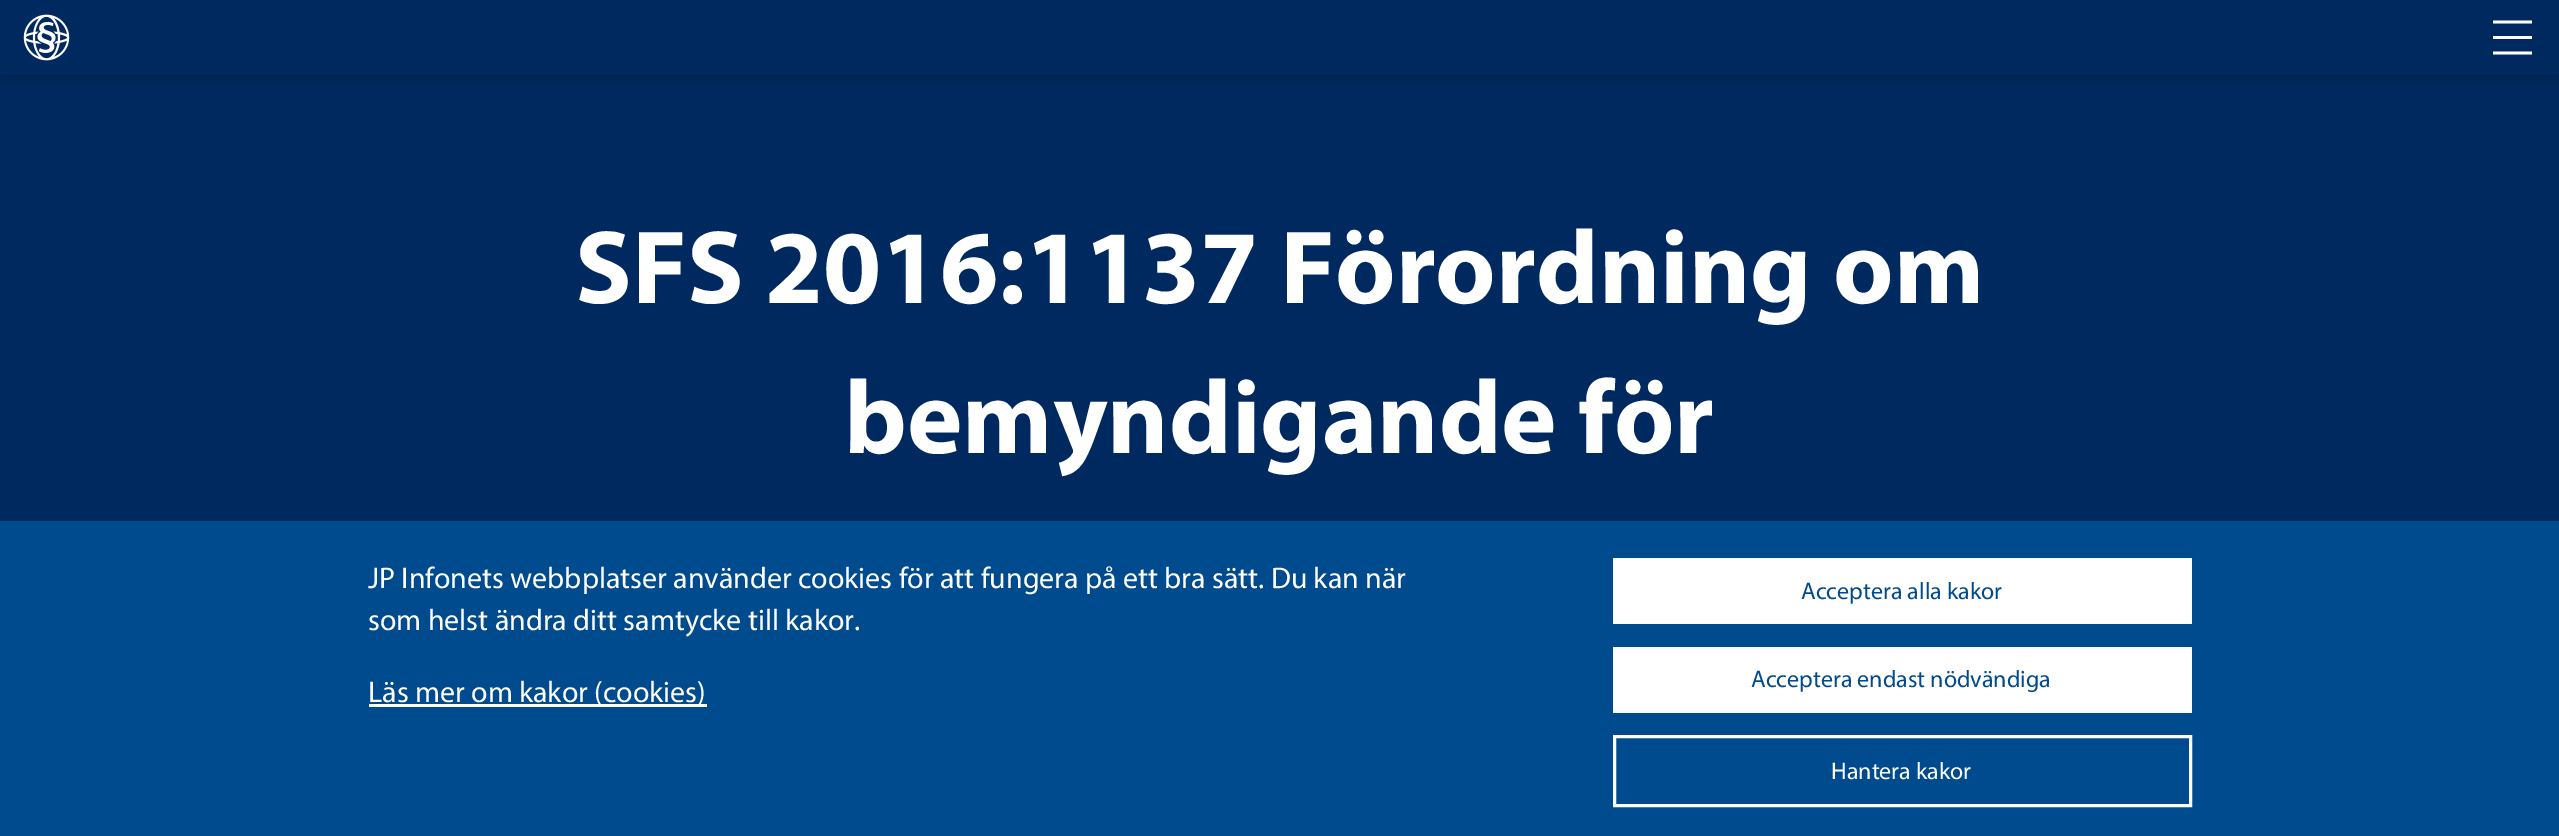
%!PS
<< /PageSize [2559 836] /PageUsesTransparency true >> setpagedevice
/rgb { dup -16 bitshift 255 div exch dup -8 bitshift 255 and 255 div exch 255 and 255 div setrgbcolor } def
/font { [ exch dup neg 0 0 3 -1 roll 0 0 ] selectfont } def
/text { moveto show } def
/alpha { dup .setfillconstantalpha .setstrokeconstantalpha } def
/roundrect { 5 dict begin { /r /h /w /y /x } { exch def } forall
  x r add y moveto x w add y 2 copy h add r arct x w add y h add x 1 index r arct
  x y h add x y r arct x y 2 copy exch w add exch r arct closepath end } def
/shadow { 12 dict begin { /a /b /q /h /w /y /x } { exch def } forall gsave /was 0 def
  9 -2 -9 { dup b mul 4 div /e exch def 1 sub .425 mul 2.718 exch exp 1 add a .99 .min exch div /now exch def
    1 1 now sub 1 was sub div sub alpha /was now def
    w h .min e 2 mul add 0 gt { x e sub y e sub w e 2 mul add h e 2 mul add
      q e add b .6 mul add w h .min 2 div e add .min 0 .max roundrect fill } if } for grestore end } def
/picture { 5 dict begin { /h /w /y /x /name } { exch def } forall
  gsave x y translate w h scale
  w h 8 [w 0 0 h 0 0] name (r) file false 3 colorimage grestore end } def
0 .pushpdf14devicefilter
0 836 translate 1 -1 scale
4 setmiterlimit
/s1 { /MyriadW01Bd-Bold 105 font 16#FFFFFF rgb } def
/s2 { /Myriad-Regular 30 font 16#FFFFFF rgb } def
/s3 { /Myriad-Regular 24 font 16#004B8D rgb } def
/s4 { /Myriad-Regular 24 font 16#FFFFFF rgb } def
16#00295F rgb
0 0 2559 836 rectfill
gsave
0 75 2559 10 rectclip
16#000000 rgb
0 5 2559 75 0 4.5 0.16 shadow
grestore
(pic1.raw) 23 14 47 47 picture
16#FFFFFF rgb
2493 51.5 moveto 2532 51.5 lineto 2532 54.5 lineto 2493 54.5 lineto closepath 2493 36 moveto 2532 36 lineto 2532 39 lineto 2493 39 lineto closepath 2493 20.5 moveto 2532 20.5 lineto 2532 23.5 lineto 2493 23.5 lineto closepath fill
s1
(SFS 2016:1137 Förordning om) 575 303 text
(bemyndigande för) 844 453 text
16#004B8D rgb
0 521 2559 315 rectfill
s2
(JP Infonets webbplatser använder cookies för att fungera på ett bra sätt. Du kan när) 368 588 text
(som helst ändra ditt samtycke till kakor.) 368 630 text
369 704 338 3 rectfill
(Läs mer om kakor \(cookies\)) 368 702 text
1613 558 579 66 rectfill
s3
(Acceptera alla kakor) 1801 599 text
16#FFFFFF rgb
1613 647 579 66 rectfill
s3
(Acceptera endast nödvändiga) 1751 687 text
16#FFFFFF rgb
3 setlinewidth
1614.5 736.5 576 69 rectstroke
(Hantera kakor) 1831 779 text
.poppdf14devicefilter showpage
